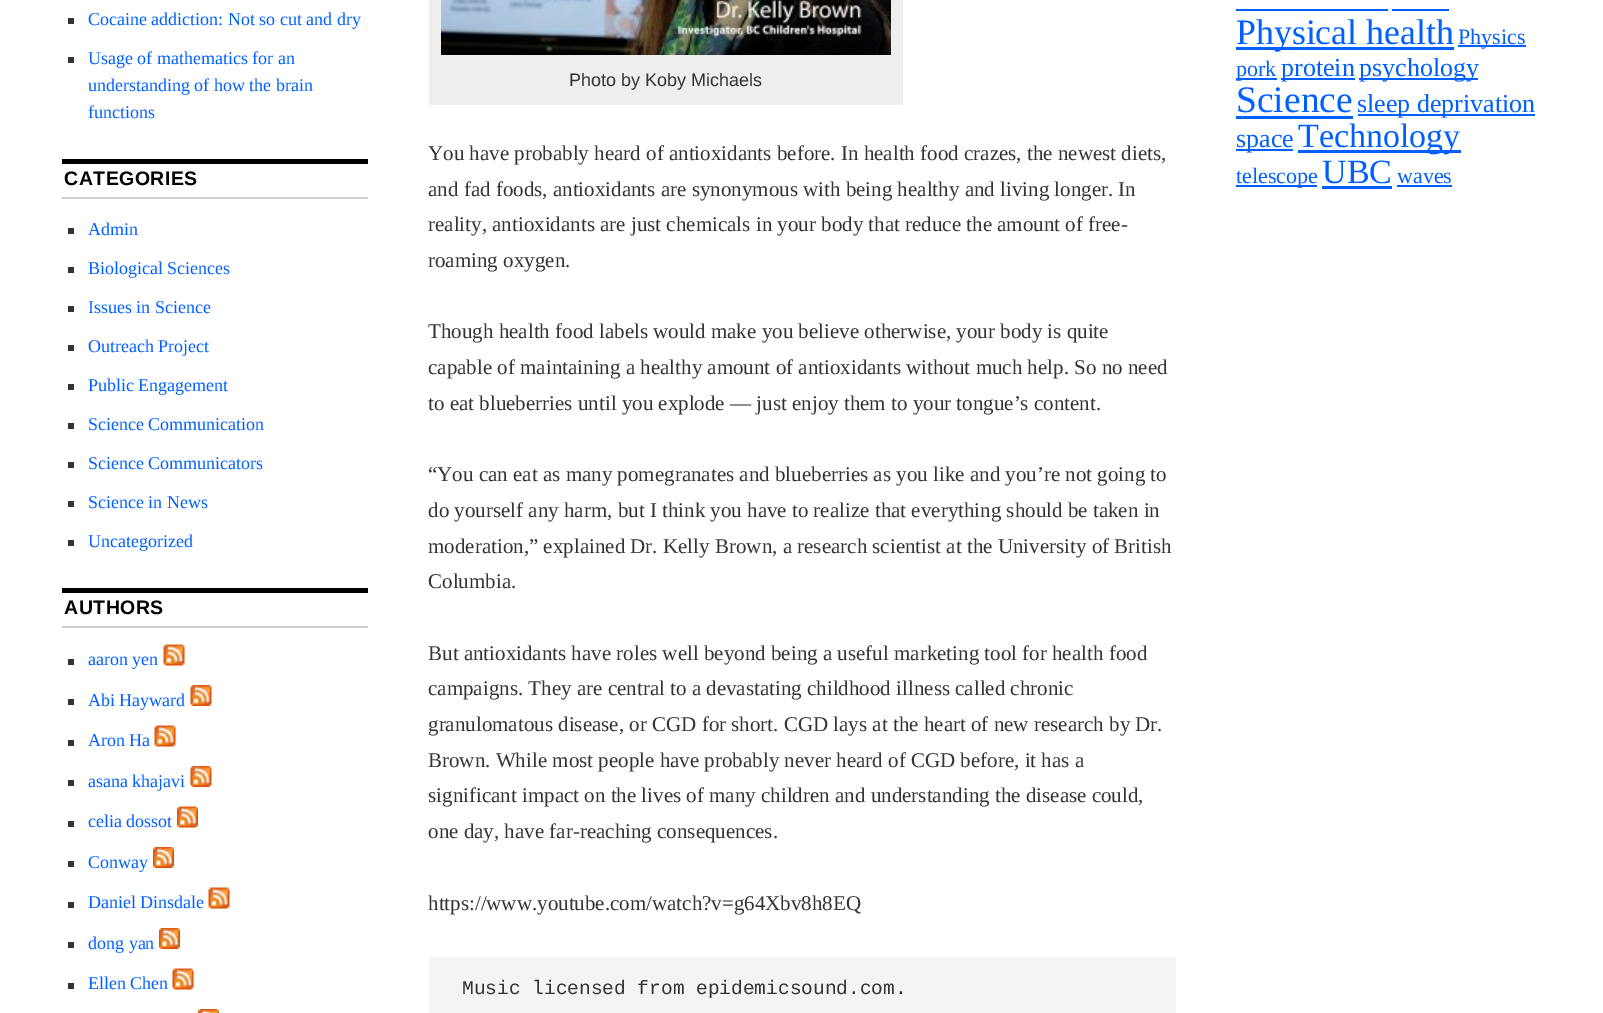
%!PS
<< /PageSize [1603 1013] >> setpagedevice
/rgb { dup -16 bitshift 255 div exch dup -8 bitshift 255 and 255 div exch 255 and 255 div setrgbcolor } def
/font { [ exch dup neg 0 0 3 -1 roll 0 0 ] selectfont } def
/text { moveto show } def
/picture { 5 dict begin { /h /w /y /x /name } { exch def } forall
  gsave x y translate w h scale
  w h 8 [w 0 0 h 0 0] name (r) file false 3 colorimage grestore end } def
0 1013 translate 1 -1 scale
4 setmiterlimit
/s1 { /LiberationSerif-Regular 18 font 16#0060FF rgb } def
/s2 { /LiberationSans-Regular 18 font 16#333333 rgb } def
/s3 { /LiberationSerif-Regular 21 font 16#333333 rgb } def
/s4 { /LiberationMono-Regular 19.5 font 16#333333 rgb } def
/s5 { /LiberationSerif-Regular 35.75 font 16#0060FF rgb } def
/s6 { /LiberationSerif-Regular 22 font 16#0060FF rgb } def
/s7 { /LiberationSerif-Regular 26 font 16#0060FF rgb } def
/s8 { /LiberationSerif-Regular 37.5 font 16#0060FF rgb } def
/s9 { /LiberationSerif-Regular 34 font 16#0060FF rgb } def
16#FFFFFF rgb
0 0 1603 1013 rectfill
16#333333 rgb
68 18 6 6 rectfill
s1
(Cocaine addiction: Not so cut and dry) 88 25 text
16#333333 rgb
68 57 6 6 rectfill
s1
(Usage of mathematics for an) 88 64 text
(understanding of how the brain) 88 91 text
(functions) 88 118 text
16#000000 rgb
62 159 306 5 rectfill
16#CCCCCC rgb
62 197 306 2 rectfill
/LiberationSans-Bold 19.5 font
16#000000 rgb
64 185 moveto 0.5 0 (CATEGORIES) ashow
16#333333 rgb
68 228 6 6 rectfill
s1
(Admin) 88 235 text
16#333333 rgb
68 267 6 6 rectfill
s1
(Biological Sciences) 88 274 text
16#333333 rgb
68 306 6 6 rectfill
s1
(Issues in Science) 88 313 text
16#333333 rgb
68 345 6 6 rectfill
s1
(Outreach Project) 88 352 text
16#333333 rgb
68 384 6 6 rectfill
s1
(Public Engagement) 88 391 text
16#333333 rgb
68 423 6 6 rectfill
s1
(Science Communication) 88 430 text
16#333333 rgb
68 462 6 6 rectfill
s1
(Science Communicators) 88 469 text
16#333333 rgb
68 501 6 6 rectfill
s1
(Science in News) 88 508 text
16#333333 rgb
68 540 6 6 rectfill
s1
(Uncategorized) 88 547 text
16#000000 rgb
62 588 306 5 rectfill
16#CCCCCC rgb
62 626 306 2 rectfill
/LiberationSans-Bold 19.5 font
16#000000 rgb
64 614 moveto 0.5 0 (AUTHORS) ashow
16#333333 rgb
68 659 6 6 rectfill
s1
(aaron yen) 88 665 text
(pic1.raw) 163 644 22 22 picture
16#333333 rgb
68 699 6 6 rectfill
s1
(Abi Hayward) 88 706 text
(pic2.raw) 190 685 22 21 picture
16#333333 rgb
68 740 6 6 rectfill
s1
(Aron Ha) 88 746 text
(pic1.raw) 154 725 22 22 picture
16#333333 rgb
68 780 6 6 rectfill
s1
(asana khajavi) 88 787 text
(pic2.raw) 190 766 22 21 picture
16#333333 rgb
68 821 6 6 rectfill
s1
(celia dossot) 88 827 text
(pic3.raw) 177 806 21 22 picture
16#333333 rgb
68 861 6 6 rectfill
s1
(Conway) 88 868 text
(pic4.raw) 153 847 21 21 picture
16#333333 rgb
68 902 6 6 rectfill
s1
(Daniel Dinsdale) 88 908 text
(pic1.raw) 208 887 22 22 picture
16#333333 rgb
68 942 6 6 rectfill
s1
(dong yan) 88 949 text
(pic4.raw) 159 928 21 21 picture
16#333333 rgb
68 983 6 6 rectfill
s1
(Ellen Chen) 88 989 text
(pic1.raw) 172 968 22 22 picture
(pic5.raw) 198 1009 21 4 picture
16#EEEEEE rgb
429 0 474 105 rectfill
(pic6.raw) 441 0 450 55 picture
s2
(Photo by Koby Michaels) 569 86 text
s3
(You have probably heard of antioxidants before. In health food crazes, the newest diets,) 428 160 text
(and fad foods, antioxidants are synonymous with being healthy and living longer. In) 428 196 text
(reality, antioxidants are just chemicals in your body that reduce the amount of free-) 428 231 text
(roaming oxygen.) 428 267 text
(Though health food labels would make you believe otherwise, your body is quite) 428 338 text
(capable of maintaining a healthy amount of antioxidants without much help. So no need) 428 374 text
(to eat blueberries until you explode — just enjoy them to your tongue’s content.) 428 410 text
(“You can eat as many pomegranates and blueberries as you like and you’re not going to) 428 481 text
(do yourself any harm, but I think you have to realize that everything should be taken in) 428 517 text
(moderation,” explained Dr. Kelly Brown, a research scientist at the University of British) 428 553 text
(Columbia.) 428 588 text
(But antioxidants have roles well beyond being a useful marketing tool for health food) 428 660 text
(campaigns. They are central to a devastating childhood illness called chronic) 428 695 text
(granulomatous disease, or CGD for short. CGD lays at the heart of new research by Dr.) 428 731 text
(Brown. While most people have probably never heard of CGD before, it has a) 428 767 text
(significant impact on the lives of many children and understanding the disease could,) 428 802 text
(one day, have far-reaching consequences.) 428 838 text
(https://www.youtube.com/watch?v=g64Xbv8h8EQ) 428 910 text
16#F4F4F4 rgb
429 957 747 56 rectfill
s4
(Music licensed from epidemicsound.com.) 462 994 text
16#0060FF rgb
1236 9 152 2 rectfill
1392 9 57 2 rectfill
1236 47 218 3 rectfill
s5
(Physical health) 1236 44 text
1458 45 68 2 rectfill
s6
(Physics) 1458 44 text
1236 78 41 2 rectfill
(pork) 1236 76 text
1281 78 74 2 rectfill
s7
(protein) 1281 76 text
1359 78 119 2 rectfill
(psychology) 1359 76 text
s8
(Science) 1236 112 text
1236 116 117 3 rectfill
1358 114 177 2 rectfill
s7
(sleep deprivation) 1357 112 text
1236 149 57 2 rectfill
(space) 1236 147 text
1298 150 163 3 rectfill
s9
(Technology) 1298 147 text
1236 185 81 2 rectfill
s6
(telescope) 1236 183 text
s9
(UBC) 1322 183 text
1322 186 70 3 rectfill
s6
(waves) 1397 183 text
1397 185 55 2 rectfill
showpage
